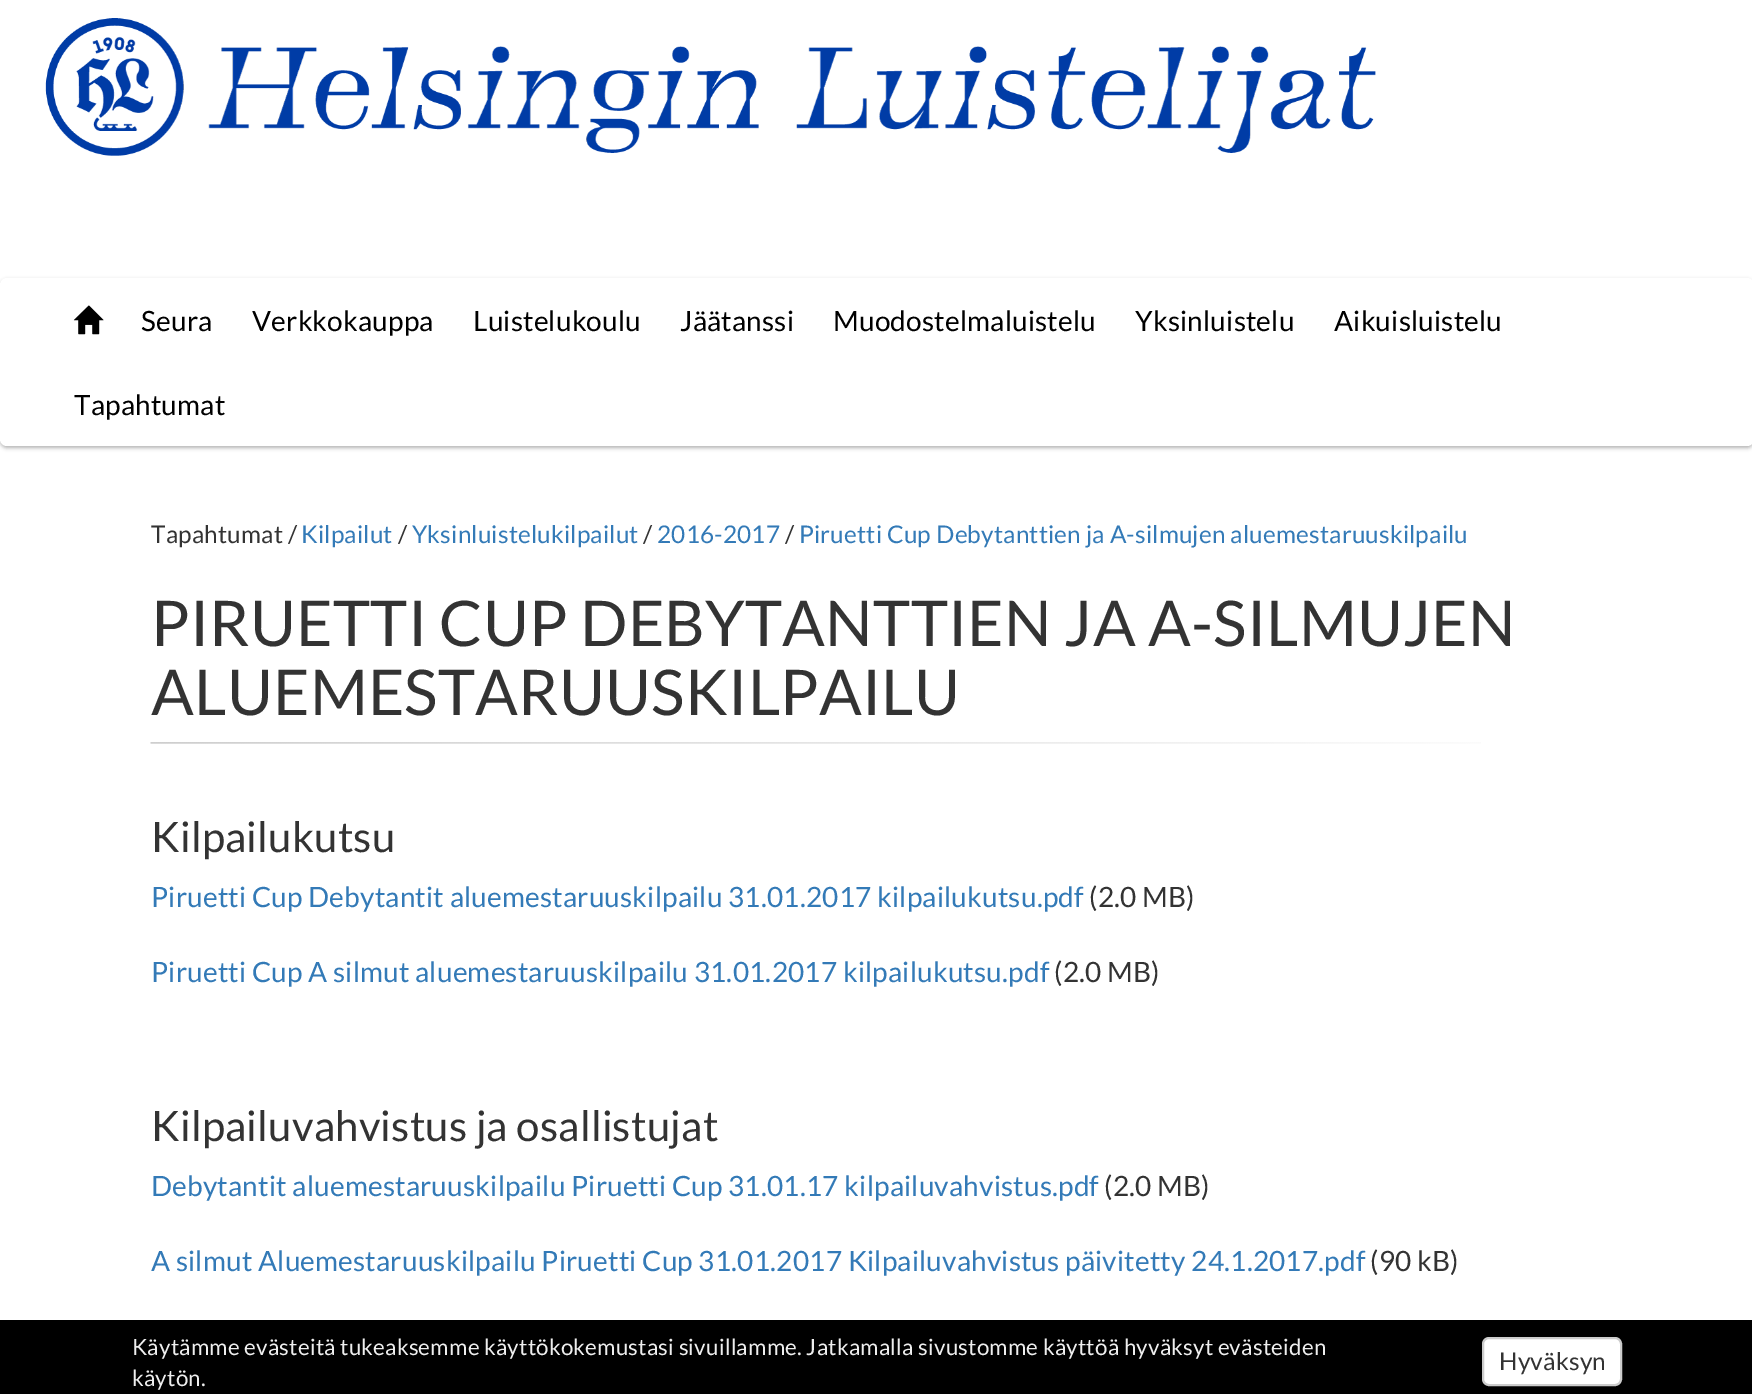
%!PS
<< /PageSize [1752 1394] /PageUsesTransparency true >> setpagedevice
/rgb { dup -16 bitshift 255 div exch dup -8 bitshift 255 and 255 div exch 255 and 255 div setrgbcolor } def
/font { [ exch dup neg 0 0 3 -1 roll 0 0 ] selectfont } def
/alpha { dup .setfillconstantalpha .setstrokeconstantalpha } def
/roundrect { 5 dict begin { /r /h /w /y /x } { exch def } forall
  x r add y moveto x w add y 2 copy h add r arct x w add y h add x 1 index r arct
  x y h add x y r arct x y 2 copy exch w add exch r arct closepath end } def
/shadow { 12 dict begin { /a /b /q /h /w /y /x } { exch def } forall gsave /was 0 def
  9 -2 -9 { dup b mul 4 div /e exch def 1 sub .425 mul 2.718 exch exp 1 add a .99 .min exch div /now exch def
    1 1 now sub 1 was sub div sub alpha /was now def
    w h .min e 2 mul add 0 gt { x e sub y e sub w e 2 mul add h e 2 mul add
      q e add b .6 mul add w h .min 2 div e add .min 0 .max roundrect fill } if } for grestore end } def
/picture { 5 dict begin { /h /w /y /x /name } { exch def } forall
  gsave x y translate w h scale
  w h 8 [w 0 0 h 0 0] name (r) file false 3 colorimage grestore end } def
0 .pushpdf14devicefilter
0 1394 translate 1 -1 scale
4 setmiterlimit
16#FFFFFF rgb
0 0 1752 1394 rectfill
(pic1.raw) 45 18 1331 138 picture
16#000000 rgb
0 280 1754 168 7 2 0.3 shadow
16#FFFFFF rgb
0 278 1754 168 7 roundrect fill
(pic2.raw) 73 305 31 30 picture
/Lato-Regular 28 font
16#000000 rgb
141 331 moveto 0.18 0 (Seura) ashow
252 331 moveto 0.18 0 (Verkkokauppa) ashow
473 331 moveto 0.18 0 (Luistelukoulu) ashow
680 331 moveto 0.18 0 (Jäätanssi) ashow
833 331 moveto 0.18 0 (Muodostelmaluistelu) ashow
1135 331 moveto 0.18 0 (Yksinluistelu) ashow
1334 331 moveto 0.18 0 (Aikuisluistelu) ashow
74 415 moveto 0.18 0 (Tapahtumat) ashow
/Lato-Regular 24.35 font
16#333333 rgb
151 543 moveto 0.18 0 (Tapahtumat /) ashow
16#337AB7 rgb
301 543 moveto 0.18 0 (Kilpailut) ashow
16#333333 rgb
398 543 moveto 0.18 0 (/) ashow
16#337AB7 rgb
412 543 moveto 0.18 0 (Yksinluistelukilpailut) ashow
16#333333 rgb
643 543 moveto 0.18 0 (/) ashow
16#337AB7 rgb
657 543 moveto 0.18 0 (2016-2017) ashow
16#333333 rgb
785 543 moveto 0.18 0 (/) ashow
16#337AB7 rgb
799 543 moveto 0.18 0 (Piruetti Cup Debytanttien ja A-silmujen aluemestaruuskilpailu) ashow
(pic3.raw) 150 742 1331 2 picture
/Lato-Regular 63 font
16#333333 rgb
151 646 moveto 0.18 0 (PIRUETTI CUP DEBYTANTTIEN JA A-SILMUJEN) ashow
151 715 moveto 0.18 0 (ALUEMESTARUUSKILPAILU) ashow
/Lato-Regular 42 font
151 852 moveto 0.18 0 (Kilpailukutsu) ashow
/Lato-Regular 28 font
16#337AB7 rgb
151 907 moveto 0.18 0 (Piruetti Cup Debytantit aluemestaruuskilpailu 31.01.2017 kilpailukutsu.pdf) ashow
16#333333 rgb
1089 907 moveto 0.18 0 (\(2.0 MB\)) ashow
16#337AB7 rgb
151 982 moveto 0.18 0 (Piruetti Cup A silmut aluemestaruuskilpailu 31.01.2017 kilpailukutsu.pdf) ashow
16#333333 rgb
1054 982 moveto 0.18 0 (\(2.0 MB\)) ashow
/Lato-Regular 42 font
151 1141 moveto 0.18 0 (Kilpailuvahvistus ja osallistujat) ashow
/Lato-Regular 28 font
16#337AB7 rgb
151 1196 moveto 0.18 0 (Debytantit aluemestaruuskilpailu Piruetti Cup 31.01.17 kilpailuvahvistus.pdf) ashow
16#333333 rgb
1104 1196 moveto 0.18 0 (\(2.0 MB\)) ashow
16#337AB7 rgb
151 1271 moveto 0.18 0 (A silmut Aluemestaruuskilpailu Piruetti Cup 31.01.2017 Kilpailuvahvistus päivitetty 24.1.2017.pdf) ashow
16#333333 rgb
1370 1271 moveto 0.18 0 (\(90 kB\)) ashow
16#000000 rgb
0 1320 1752 74 rectfill
/Lato-Regular 22.4 font
16#EEEEEE rgb
132 1355 moveto 0.18 0 (Käytämme evästeitä tukeaksemme käyttökokemustasi sivuillamme. Jatkamalla sivustomme käyttöä hyväksyt evästeiden) ashow
132 1386 moveto 0.18 0 (käytön.) ashow
16#FFFFFF rgb
1483 1338 138 47 6 roundrect gsave fill grestore
16#CCCCCC rgb
2 setlinewidth
stroke
/Lato-Regular 24.5 font
16#333333 rgb
1499 1370 moveto 0.18 0 (Hyväksyn) ashow
.poppdf14devicefilter showpage
